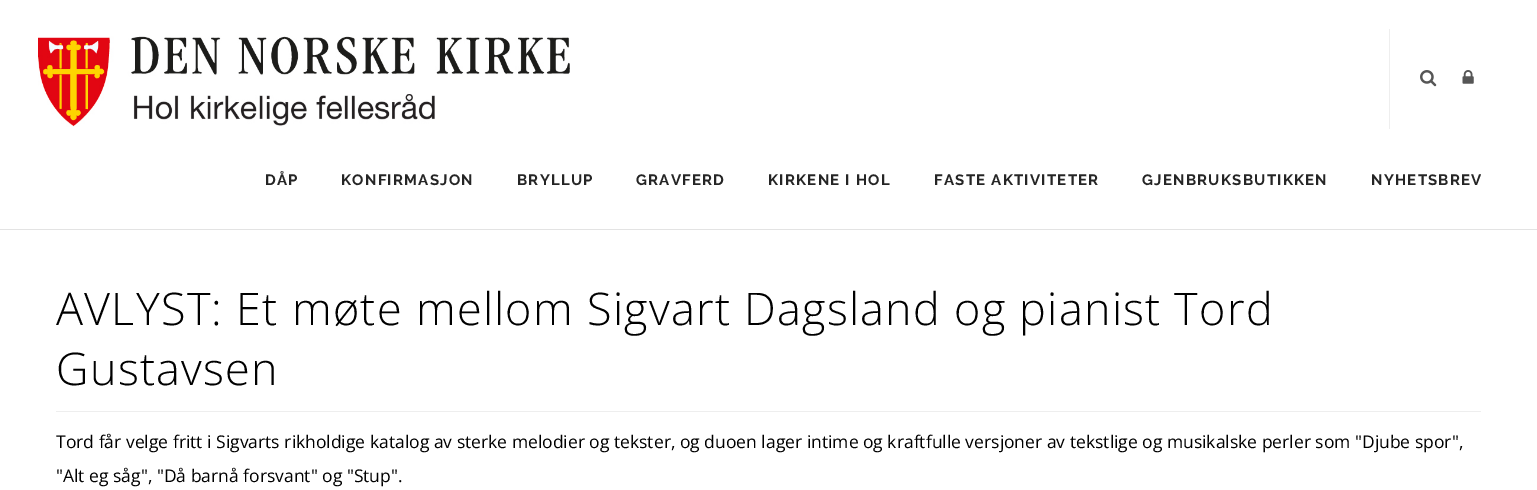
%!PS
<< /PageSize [1537 490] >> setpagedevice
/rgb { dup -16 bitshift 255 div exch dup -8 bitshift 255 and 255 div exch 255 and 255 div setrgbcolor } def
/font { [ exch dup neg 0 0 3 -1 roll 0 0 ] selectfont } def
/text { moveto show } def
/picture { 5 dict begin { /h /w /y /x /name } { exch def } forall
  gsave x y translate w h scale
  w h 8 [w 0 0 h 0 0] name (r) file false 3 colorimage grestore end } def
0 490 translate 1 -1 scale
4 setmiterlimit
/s1 { /OpenSans-Regular 17.5 font 16#000000 rgb } def
16#FFFFFF rgb
0 0 1537 490 rectfill
16#E3E3E3 rgb
0 229 1537 1 rectfill
(pic1.raw) 38 36 532 91 picture
16#EEEEEE rgb
1389 29 1 100 rectfill
(pic2.raw) 1420 70 17 17 picture
(pic3.raw) 1462 70 12 14 picture
/Raleway-Bold 15 font
16#252525 rgb
265 185 moveto 1.25 0 (DÅP) ashow
341 185 moveto 1.25 0 (KONFIRMASJON) ashow
517 185 moveto 1.25 0 (BRYLLUP) ashow
636 185 moveto 1.25 0 (GRAVFERD) ashow
768 185 moveto 1.25 0 (KIRKENE I HOL) ashow
934 185 moveto 1.25 0 (FASTE AKTIVITETER) ashow
1142 185 moveto 1.25 0 (GJENBRUKSBUTIKKEN) ashow
1371 185 moveto 1.25 0 (NYHETSBREV) ashow
/OpenSans-Light 45 font
16#000000 rgb
56 325 moveto 1.25 0 (AVLYST: Et møte mellom Sigvart Dagsland og pianist Tord) ashow
56 385 moveto 1.25 0 (Gustavsen) ashow
16#EEEEEE rgb
56 411 1425 1 rectfill
s1
(Tord får velge fritt i Sigvarts rikholdige katalog av sterke melodier og tekster, og duoen lager intime og kraftfulle versjoner av tekstlige og musikalske perler som "Djube spor",) 56 448 text
("Alt eg såg", "Då barnå forsvant" og "Stup".) 56 482 text
showpage
